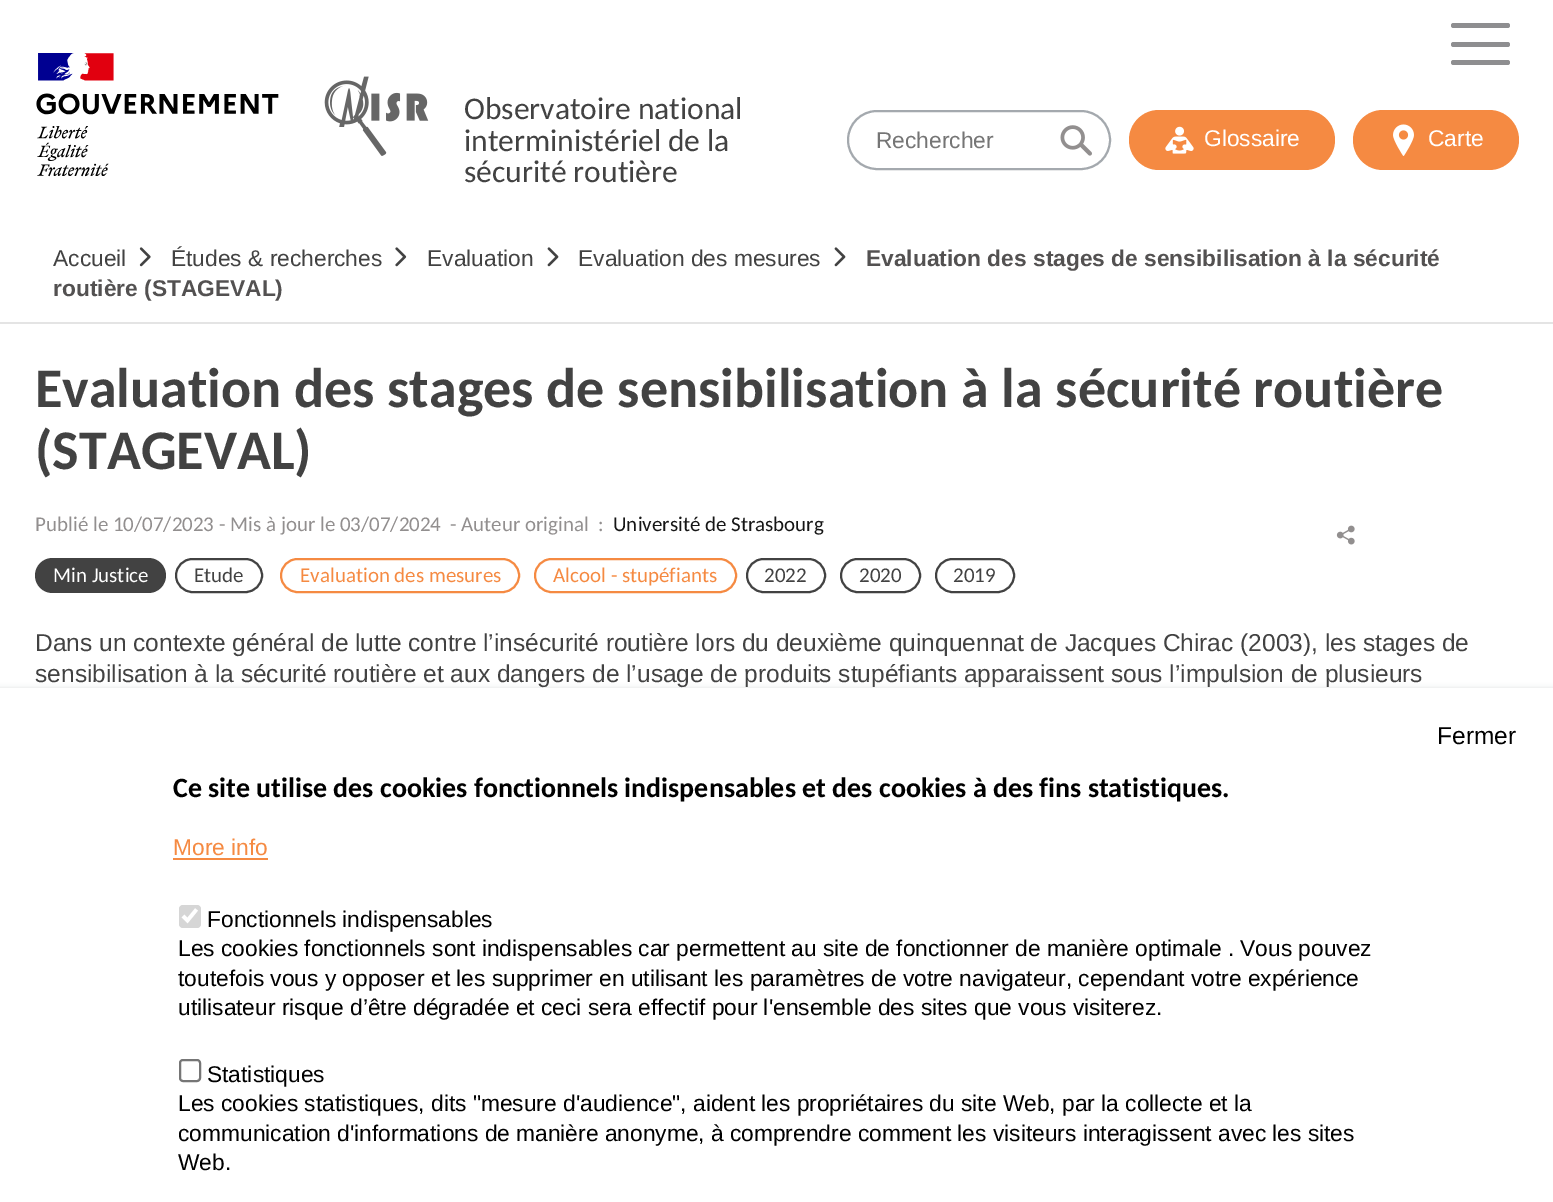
%!PS
<< /PageSize [1553 1202] /PageUsesTransparency true >> setpagedevice
/rgb { dup -16 bitshift 255 div exch dup -8 bitshift 255 and 255 div exch 255 and 255 div setrgbcolor } def
/font { [ exch dup neg 0 0 3 -1 roll 0 0 ] selectfont } def
/text { moveto show } def
/alpha { dup .setfillconstantalpha .setstrokeconstantalpha } def
/roundrect { 5 dict begin { /r /h /w /y /x } { exch def } forall
  x r add y moveto x w add y 2 copy h add r arct x w add y h add x 1 index r arct
  x y h add x y r arct x y 2 copy exch w add exch r arct closepath end } def
/shadow { 12 dict begin { /a /b /q /h /w /y /x } { exch def } forall gsave /was 0 def
  9 -2 -9 { dup b mul 4 div /e exch def 1 sub .425 mul 2.718 exch exp 1 add a .99 .min exch div /now exch def
    1 1 now sub 1 was sub div sub alpha /was now def
    w h .min e 2 mul add 0 gt { x e sub y e sub w e 2 mul add h e 2 mul add
      q e add b .6 mul add w h .min 2 div e add .min 0 .max roundrect fill } if } for grestore end } def
/picture { 5 dict begin { /h /w /y /x /name } { exch def } forall
  gsave x y translate w h scale
  w h 8 [w 0 0 h 0 0] name (r) file false 3 colorimage grestore end } def
0 .pushpdf14devicefilter
0 1202 translate 1 -1 scale
4 setmiterlimit
/s1 { /Carlito-Regular 31.5 font 16#424242 rgb } def
/s2 { /LiberationSans-Regular 22.75 font 16#757575 rgb } def
/s3 { /LiberationSans-Regular 22.75 font 16#FFFFFF rgb } def
/s4 { /LiberationSans-Regular 22.75 font 16#424242 rgb } def
/s5 { /LiberationSans-Bold 22.75 font 16#535151 rgb } def
/s6 { /Carlito-Bold 56 font 16#424242 rgb } def
/s7 { /Carlito-Regular 21 font 16#928F8F rgb } def
/s8 { /Carlito-Regular 21 font 16#161616 rgb } def
/s9 { /Carlito-Regular 21 font 16#FFFFFF rgb } def
/s10 { /Carlito-Regular 21 font 16#424242 rgb } def
/s11 { /Carlito-Regular 21 font 16#F58A42 rgb } def
/s12 { /LiberationSans-Regular 24.5 font 16#424242 rgb } def
/s13 { /LiberationSans-Regular 24.5 font 16#000000 rgb } def
/s14 { /Carlito-Bold 28 font 16#000000 rgb } def
/s15 { /LiberationSans-Regular 22.75 font 16#F58A42 rgb } def
/s16 { /LiberationSans-Regular 22.75 font 16#000000 rgb } def
16#FFFFFF rgb
0 0 1553 1202 rectfill
16#8E8E90 rgb
1451 23 59 5 2.5 roundrect fill
1451 42 59 5 2.5 roundrect fill
1451 60 59 5 2.5 roundrect fill
(pic1.raw) 36 53 243 124 picture
(pic2.raw) 324 76 105 80 picture
s1
(Observatoire national) 464 119 text
(interministériel de la) 464 151 text
(sécurité routière) 464 182 text
16#A4A9AE rgb
2 setlinewidth
848 111 262 58 29 roundrect stroke
s2
(Rechercher) 876 148 text
(pic3.raw) 1060 125 32 31 picture
16#F58A42 rgb
1129 110 206 60 30 roundrect fill
(pic4.raw) 1165 126 29 28 picture
s3
(Glossaire) 1204 146 text
16#F58A42 rgb
1353 110 166 60 30 roundrect fill
(pic5.raw) 1393 124 21 32 picture
s3
(Carte) 1428 146 text
16#E4E4E4 rgb
0 322 1553 2 rectfill
s4
(Accueil) 53 266 text
(pic6.raw) 139 247 12 20 picture
(Études & recherches) 171 266 text
(pic7.raw) 395 247 12 20 picture
(Evaluation) 427 266 text
(pic8.raw) 547 247 12 20 picture
(Evaluation des mesures) 578 266 text
(pic8.raw) 834 247 12 20 picture
s5
(Evaluation des stages de sensibilisation à la sécurité) 866 266 text
(routière \(STAGEVAL\)) 53 296 text
s6
(Evaluation des stages de sensibilisation à la sécurité routière) 35 407 text
(\(STAGEVAL\)) 35 469 text
s7
(Publié le 10/07/2023 - Mis à jour le 03/07/2024) 35 531 text
(- Auteur original) 450 531 text
(:) 598 531 text
s8
(Université de Strasbourg) 613 531 text
16#424242 rgb
35 558 131 35 17.5 roundrect fill
s9
(Min Justice) 53 582 text
16#424242 rgb
176 559 86 33 16.5 roundrect stroke
(Etude) 194 582 text
16#F58A42 rgb
281 559 238 33 16.5 roundrect stroke
(Evaluation des mesures) 300 582 text
535 559 201 33 16.5 roundrect stroke
(Alcool - stupéfiants) 553 582 text
16#424242 rgb
747 559 78 33 16.5 roundrect stroke
(2022) 764 582 text
841 559 79 33 16.5 roundrect stroke
(2020) 859 582 text
936 559 78 33 16.5 roundrect stroke
(2019) 953 582 text
(pic9.raw) 1336 525 19 20 picture
s12
(Dans un contexte général de lutte contre l’insécurité routière lors du deuxième quinquennat de Jacques Chirac \(2003\), les stages de) 35 651 text
(sensibilisation à la sécurité routière et aux dangers de l’usage de produits stupéfiants apparaissent sous l’impulsion de plusieurs) 35 682 text
16#3C4043 rgb
-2 688 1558 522 0 2.5 0.16 shadow
16#FFFFFF rgb
0 688 1553 514 rectfill
s13
(Fermer) 1437 744 text
s14
(Ce site utilise des cookies fonctionnels indispensables et des cookies à des fins statistiques.) 173 797 text
s15
(More info) 173 855 text
173 858 95 2 rectfill
16#D6D6D6 rgb
179 905 22 23 4 roundrect fill
16#FFFFFF rgb
3.6 setlinewidth
183 916 moveto 187.5 920.5 lineto 196.5 909.5 lineto stroke
s16
(Fonctionnels indispensables) 207 927 text
(Les cookies fonctionnels sont indispensables car permettent au site de fonctionner de manière optimale . Vous pouvez) 178 956 text
(toutefois vous y opposer et les supprimer en utilisant les paramètres de votre navigateur, cependant votre expérience) 178 986 text
(utilisateur risque d’être dégradée et ceci sera effectif pour l'ensemble des sites que vous visiterez.) 178 1015 text
16#767676 rgb
2 setlinewidth
180 1060 20 21 3 roundrect stroke
s16
(Statistiques) 207 1082 text
(Les cookies statistiques, dits "mesure d'audience", aident les propriétaires du site Web, par la collecte et la) 178 1111 text
(communication d'informations de manière anonyme, à comprendre comment les visiteurs interagissent avec les sites) 178 1141 text
(Web.) 178 1170 text
.poppdf14devicefilter showpage
